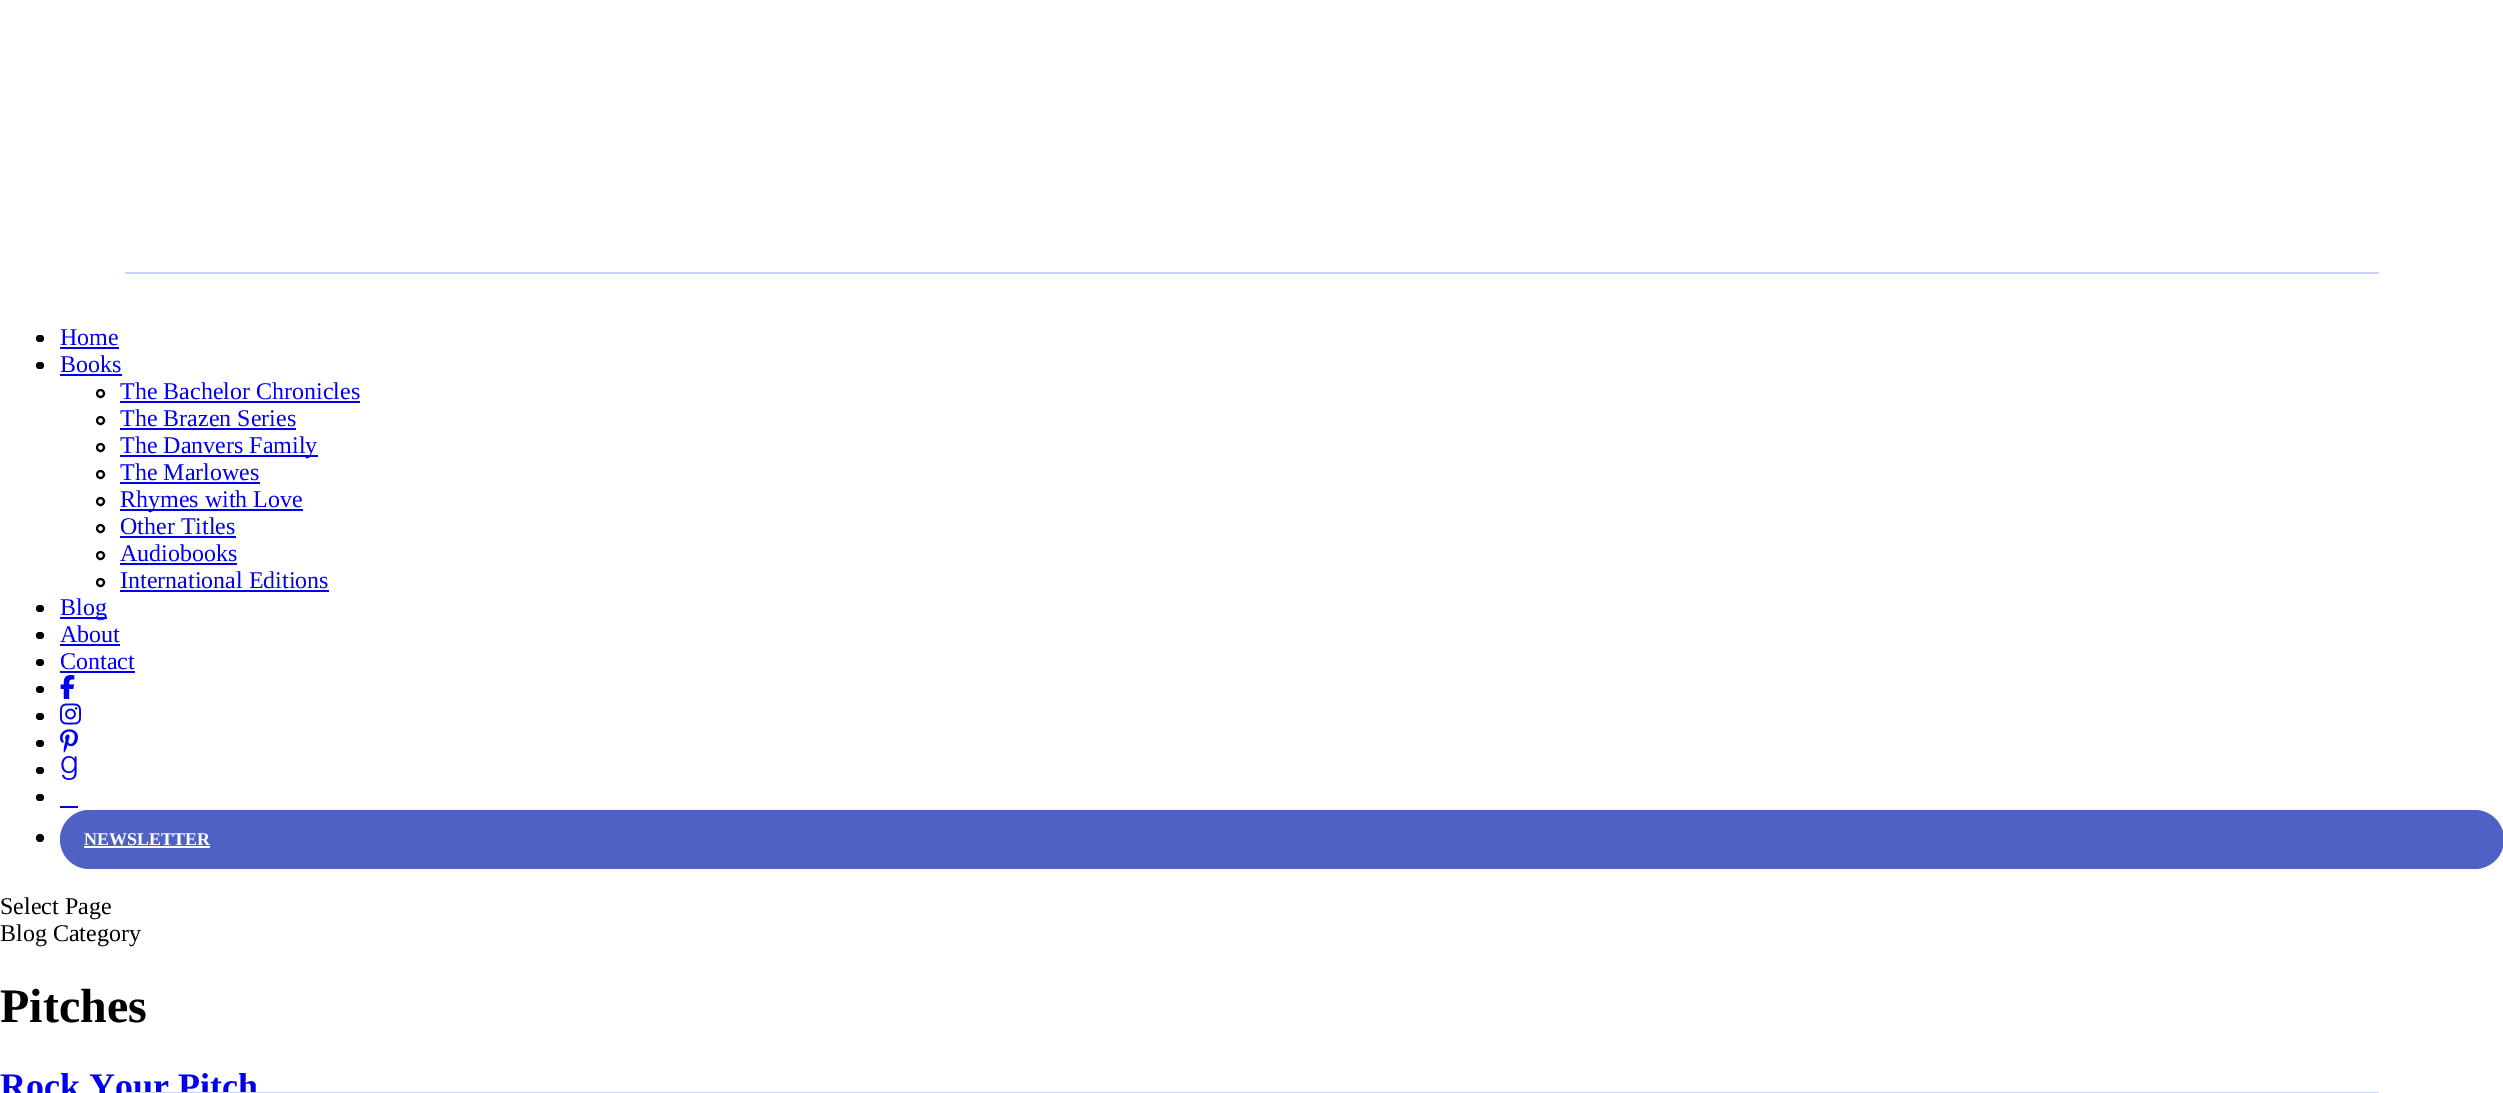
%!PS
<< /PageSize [2503 1093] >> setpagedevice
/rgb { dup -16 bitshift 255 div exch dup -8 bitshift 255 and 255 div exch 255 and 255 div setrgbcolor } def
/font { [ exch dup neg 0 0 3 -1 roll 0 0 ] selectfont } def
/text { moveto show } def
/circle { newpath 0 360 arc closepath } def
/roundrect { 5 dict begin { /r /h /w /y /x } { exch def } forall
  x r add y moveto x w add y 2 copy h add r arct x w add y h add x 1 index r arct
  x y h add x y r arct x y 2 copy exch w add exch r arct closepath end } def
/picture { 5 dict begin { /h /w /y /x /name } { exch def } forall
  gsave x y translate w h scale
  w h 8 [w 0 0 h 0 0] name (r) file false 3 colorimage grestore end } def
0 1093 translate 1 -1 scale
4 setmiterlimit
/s1 { /LiberationSerif-Regular 24 font 16#0000EE rgb } def
/s2 { /LiberationSerif-Bold 18 font 16#FFFFFF rgb } def
/s3 { /LiberationSerif-Regular 24 font 16#000000 rgb } def
/s4 { /LiberationSerif-Bold 36 font 16#0000EE rgb } def
/s5 { /LiberationSerif-Bold 48 font 16#000000 rgb } def
16#FFFFFF rgb
0 0 2503 1093 rectfill
16#C9D5FD rgb
125 272 2254 2 rectfill
16#000000 rgb
36 335 8 7 3.5 roundrect fill
s1
(Home) 60 345 text
60 347 59 2 rectfill
16#000000 rgb
36 362 8 7 3.5 roundrect fill
s1
(Books) 60 372 text
60 374 62 2 rectfill
16#000000 rgb
2 setlinewidth
100.5 393.5 3.5 circle stroke
s1
(The Bachelor Chronicles) 120 399 text
120 401 240 2 rectfill
16#000000 rgb
100.5 420.5 3.5 circle stroke
s1
(The Brazen Series) 120 426 text
120 428 176 2 rectfill
16#000000 rgb
100.5 447.5 3.5 circle stroke
16#0000EE rgb
120 455 198 2 rectfill
(The Danvers Family) 120 453 text
16#000000 rgb
100.5 474.5 3.5 circle stroke
s1
(The Marlowes) 120 480 text
120 482 140 2 rectfill
16#000000 rgb
100.5 501.5 3.5 circle stroke
16#0000EE rgb
120 509 183 2 rectfill
(Rhymes with Love) 120 507 text
16#000000 rgb
100.5 528.5 3.5 circle stroke
s1
(Other Titles) 120 534 text
120 536 116 2 rectfill
16#000000 rgb
100.5 555.5 3.5 circle stroke
s1
(Audiobooks) 120 561 text
120 563 117 2 rectfill
16#000000 rgb
100.5 582.5 3.5 circle stroke
s1
(International Editions) 120 588 text
120 590 209 2 rectfill
16#000000 rgb
36 605 8 7 3.5 roundrect fill
16#0000EE rgb
60 617 47 2 rectfill
(Blog) 60 615 text
16#000000 rgb
36 632 8 7 3.5 roundrect fill
s1
(About) 60 642 text
60 644 60 2 rectfill
16#000000 rgb
36 659 8 7 3.5 roundrect fill
s1
(Contact) 60 669 text
60 671 75 2 rectfill
16#000000 rgb
36 686 8 7 3.5 roundrect fill
(pic1.raw) 60 675 15 24 picture
36 713 8 7 3.5 roundrect fill
(pic2.raw) 60 703 21 22 picture
36 740 8 7 3.5 roundrect fill
(pic3.raw) 60 729 18 24 picture
36 767 8 7 3.5 roundrect fill
(pic4.raw) 61 756 16 24 picture
36 794 8 7 3.5 roundrect fill
16#0000EE rgb
60 806 18 2 rectfill
16#000000 rgb
40 838 4 circle fill
16#5061C5 rgb
60 810 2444 59 29.5 roundrect fill
s2
(NEWSLETTER) 84 845 text
84 846 126 2 rectfill
s3
(Select Page) 0 914 text
s4
(Rock Your Pitch) 0 1098 text
16#C9D5FD rgb
125 1092 2254 1 rectfill
s3
(Blog Category) 0 941 text
s5
(Pitches) 0 1022 text
showpage
